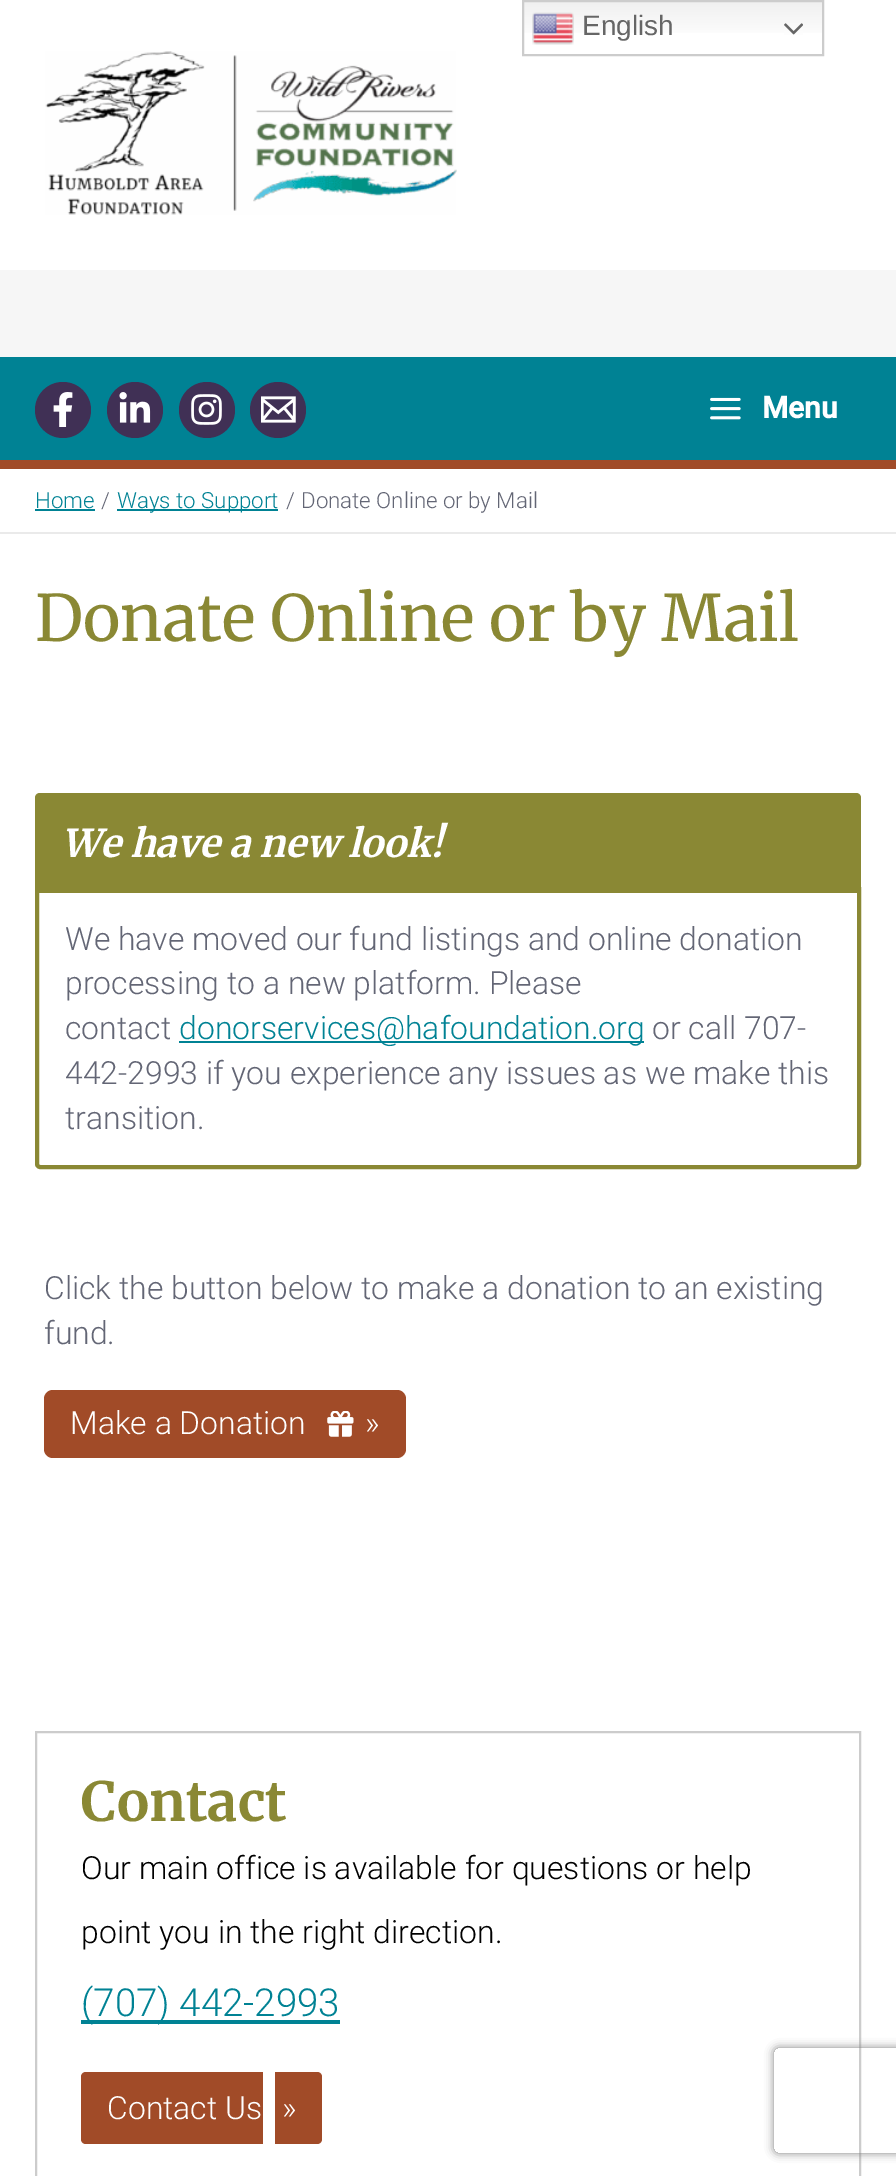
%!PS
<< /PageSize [896 2176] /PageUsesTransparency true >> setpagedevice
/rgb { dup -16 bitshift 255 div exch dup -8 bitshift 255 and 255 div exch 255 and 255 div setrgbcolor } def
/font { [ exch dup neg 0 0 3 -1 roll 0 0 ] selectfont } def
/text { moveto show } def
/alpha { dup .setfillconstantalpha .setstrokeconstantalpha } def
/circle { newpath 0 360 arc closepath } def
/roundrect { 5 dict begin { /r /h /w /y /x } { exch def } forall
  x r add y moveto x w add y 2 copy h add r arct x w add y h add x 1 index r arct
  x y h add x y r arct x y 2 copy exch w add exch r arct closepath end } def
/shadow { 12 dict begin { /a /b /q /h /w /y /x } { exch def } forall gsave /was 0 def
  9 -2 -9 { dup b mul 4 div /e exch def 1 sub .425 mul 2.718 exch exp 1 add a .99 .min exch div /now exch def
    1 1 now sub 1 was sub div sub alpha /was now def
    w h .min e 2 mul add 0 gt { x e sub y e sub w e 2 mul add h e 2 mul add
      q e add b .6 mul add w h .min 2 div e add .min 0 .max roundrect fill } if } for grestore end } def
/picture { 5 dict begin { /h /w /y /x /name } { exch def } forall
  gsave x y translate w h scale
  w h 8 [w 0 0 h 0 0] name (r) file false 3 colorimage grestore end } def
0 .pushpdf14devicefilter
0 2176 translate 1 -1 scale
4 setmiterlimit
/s1 { /LiberationSans-Regular 28 font 16#666666 rgb } def
/s2 { /Roboto-Bold 30 font 16#FFFFFF rgb } def
/s3 { /Roboto-Light 22.25 font 16#008294 rgb } def
/s4 { /Roboto-Light 22.25 font 16#636675 rgb } def
/s5 { /Merriweather-Regular 63.8 font 16#8A8834 rgb } def
/s6 { /Merriweather-BoldItalic 38.25 font 16#FFFFFF rgb } def
/s7 { /Roboto-Light 31.9 font 16#636675 rgb } def
/s8 { /Roboto-Light 31.9 font 16#008294 rgb } def
/s9 { /Roboto-Light 31.9 font 16#FFFFFF rgb } def
/s10 { /Merriweather-Bold 54 font 16#8A8834 rgb } def
/s11 { /Roboto-Light 31.9 font 16#000000 rgb } def
/s12 { /Roboto-Light 38.5 font 16#008294 rgb } def
16#FFFFFF rgb
0 0 896 2176 rectfill
gsave 524 2 moveto 822 2 lineto 822 33 lineto 524 33 lineto closepath clip newpath
<< /ShadingType 2 /ColorSpace /DeviceRGB /Coords [673 0 673 56] /Extend [true true] /Function << /FunctionType 3 /Domain [0 1] /Functions [<< /FunctionType 2 /Domain [0 1] /C0 [0.937 0.937 0.937] /C1 [1 1 1] /N 1 >> << /FunctionType 2 /Domain [0 1] /C0 [1 1 1] /C1 [1 1 1] /N 1 >>] /Bounds [0.7] /Encode [0 1 0 1] >> >> shfill grestore
16#CCCCCC rgb
2 setlinewidth
523 1 300 54 rectstroke
(pic1.raw) 532 12 42 33 picture
s1
(English) 582 35 text
(pic2.raw) 784 23 19 12 picture
(pic3.raw) 45 51 412 164 picture
16#F6F6F6 rgb
0 270 896 87 rectfill
16#008294 rgb
0 357 896 103 rectfill
16#A14B28 rgb
0 460 896 9 rectfill
16#403055 rgb
63 410 28 circle fill
(pic4.raw) 53 392 20 35 picture
135 410 28 circle fill
(pic5.raw) 119 392 32 31 picture
207 410 28 circle fill
(pic6.raw) 191 394 31 31 picture
278 410 28 circle fill
(pic7.raw) 261 396 35 27 picture
(pic8.raw) 710 397 31 23 picture
s2
(Menu) 762 418 text
16#EAEAEA rgb
0 532 896 2 rectfill
s3
(Home) 35 508 text
35 509 60 2 rectfill
s4
(/) 101 508 text
16#008294 rgb
117 509 161 2 rectfill
(Ways to Support) 117 508 text
s4
(/) 286 508 text
(Donate Online or by Mail) 301 508 text
s5
(Donate Online or by Mail) 35 641 text
4 setlinewidth
37 889 moveto 859 889 lineto 859 1164 lineto 859 1165.5 857.5 1167 856 1167 curveto 40 1167 lineto 38.5 1167 37 1165.5 37 1164 curveto closepath stroke
40 793 moveto 856 793 lineto 859 793 861 795 861 798 curveto 861 893 lineto 35 893 lineto 35 798 lineto 35 795 37 793 40 793 curveto closepath fill
s6
(We have a new look!) 61 857 text
s7
(We have moved our fund listings and online donation) 65 950 text
(processing to a new platform. Please) 65 994 text
(contact) 65 1039 text
16#008294 rgb
179 1041 465 2 rectfill
(donorservices@hafoundation.org) 179 1039 text
s7
(or call 707-) 652 1039 text
(442-2993 if you experience any issues as we make this) 65 1084 text
(transition.) 65 1129 text
(Click the button below to make a donation to an existing) 44 1299 text
(fund.) 44 1344 text
16#A14B28 rgb
44 1390 362 68 9 roundrect fill
s9
(Make a Donation) 70 1434 text
(pic9.raw) 327 1411 27 26 picture
(») 365 1434 text
16#CCCCCC rgb
2 setlinewidth
36 1732 824 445 rectstroke
s10
(Contact) 81 1821 text
s11
(Our main office is available for questions or help) 81 1879 text
(point you in the right direction.) 81 1943 text
16#008294 rgb
81 2020 259 4 rectfill
s12
(\(707\) 442-2993) 81 2016 text
16#A14B28 rgb
86 2072 moveto 263 2072 lineto 263 2144 lineto 86 2144 lineto 83 2144 81 2142 81 2139 curveto 81 2077 lineto 81 2074 83 2072 86 2072 curveto closepath fill
s9
(Contact Us) 107 2119 text
16#A14B28 rgb
275 2072 moveto 317 2072 lineto 320 2072 322 2074 322 2077 curveto 322 2139 lineto 322 2142 320 2144 317 2144 curveto 275 2144 lineto closepath fill
s9
(») 282 2119 text
gsave
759 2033 moveto 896 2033 lineto 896 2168 lineto 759 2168 lineto closepath 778 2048 moveto 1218 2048 lineto 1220 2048 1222 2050 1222 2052 curveto 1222 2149 lineto 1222 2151 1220 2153 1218 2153 curveto 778 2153 lineto 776 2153 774 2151 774 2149 curveto 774 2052 lineto 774 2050 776 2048 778 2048 curveto closepath eoclip newpath
16#808080 rgb
774 2048 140 105 4 4.5 1 shadow
grestore
.poppdf14devicefilter showpage
